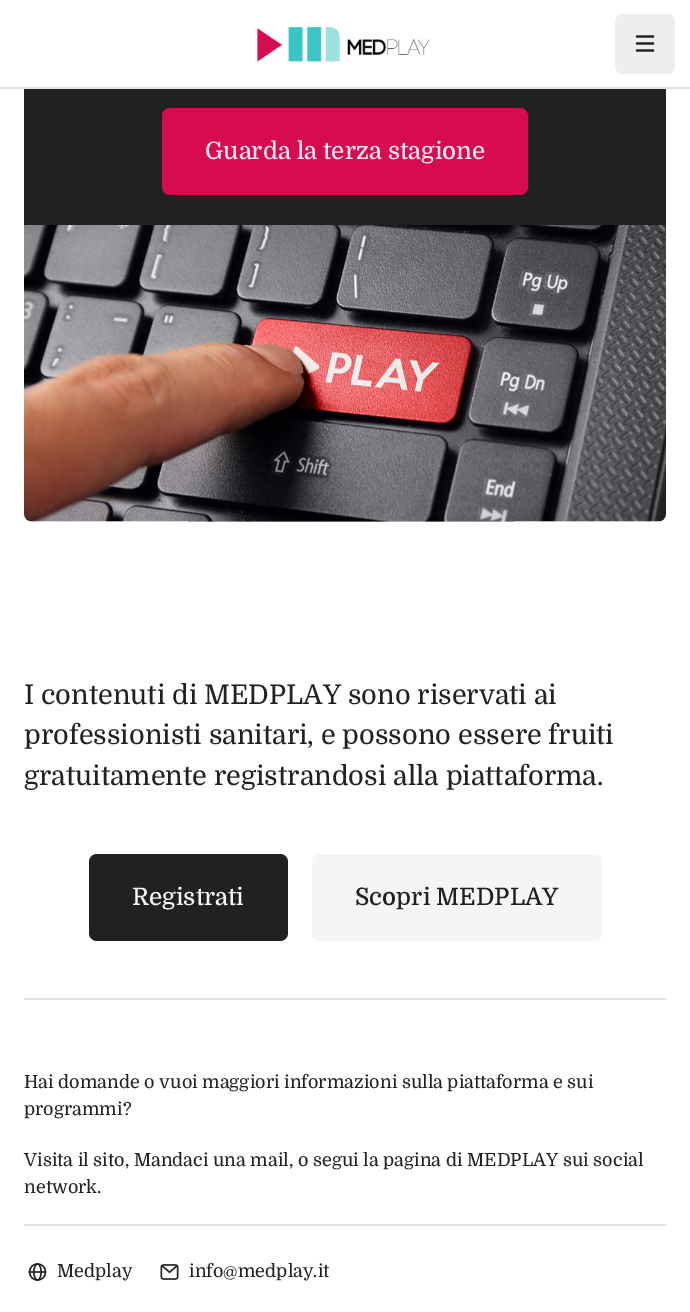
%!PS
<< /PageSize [690 1312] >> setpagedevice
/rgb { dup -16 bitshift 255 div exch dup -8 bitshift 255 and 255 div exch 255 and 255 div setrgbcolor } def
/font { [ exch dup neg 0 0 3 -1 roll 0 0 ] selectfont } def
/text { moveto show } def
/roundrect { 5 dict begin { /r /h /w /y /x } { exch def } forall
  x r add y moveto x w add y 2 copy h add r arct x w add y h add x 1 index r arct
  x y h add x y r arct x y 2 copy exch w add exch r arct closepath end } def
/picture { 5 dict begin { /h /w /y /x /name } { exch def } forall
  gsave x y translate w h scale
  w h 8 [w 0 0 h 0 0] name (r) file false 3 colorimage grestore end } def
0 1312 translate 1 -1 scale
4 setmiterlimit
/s1 { /Domine-Medium 24 font 16#FBE7EE rgb } def
/s2 { /Domine-Regular 27 font 16#212121 rgb } def
/s3 { /Domine-Medium 24 font 16#F5F5F5 rgb } def
/s4 { /Domine-Medium 24 font 16#212121 rgb } def
/s5 { /Domine-Regular 18 font 16#212121 rgb } def
16#FFFFFF rgb
0 0 690 1312 rectfill
16#E1E1E1 rgb
0 87 690 2 rectfill
(pic1.raw) 257 27 173 35 picture
16#EEEEEE rgb
615 14 60 60 8 roundrect fill
16#212121 rgb
2.2 setlinewidth
1 setlinecap
1 setlinejoin
637 36.5 moveto 653 36.5 lineto 637 50.5 moveto 653 50.5 lineto 637 43.5 moveto 653 43.5 lineto stroke
24 89 642 136 rectfill
16#D60B52 rgb
162 108 366 87 8 roundrect fill
s1
(Guarda la terza stagione) 205 159 text
(pic2.raw) 24 225 642 297 picture
s2
(I contenuti di MEDPLAY sono riservati ai) 24 704 text
(professionisti sanitari, e possono essere fruiti) 24 744 text
(gratuitamente registrandosi alla piattaforma.) 24 785 text
89 854 199 87 8 roundrect fill
s3
(Registrati) 132 905 text
312 854 290 87 8 roundrect fill
s4
(Scopri MEDPLAY) 355 905 text
16#E1E1E1 rgb
24 998 642 2 rectfill
s5
(Hai domande o vuoi maggiori informazioni sulla piattaforma e sui) 24 1088 text
(programmi?) 24 1115 text
(Visita il sito, Mandaci una mail, o segui la pagina di MEDPLAY sui social) 24 1166 text
(network.) 24 1193 text
16#E1E1E1 rgb
24 1224 642 2 rectfill
(pic3.raw) 28 1263 19 18 picture
s5
(Medplay) 57 1277 text
(pic4.raw) 160 1264 19 16 picture
(info@medplay.it) 189 1277 text
showpage
